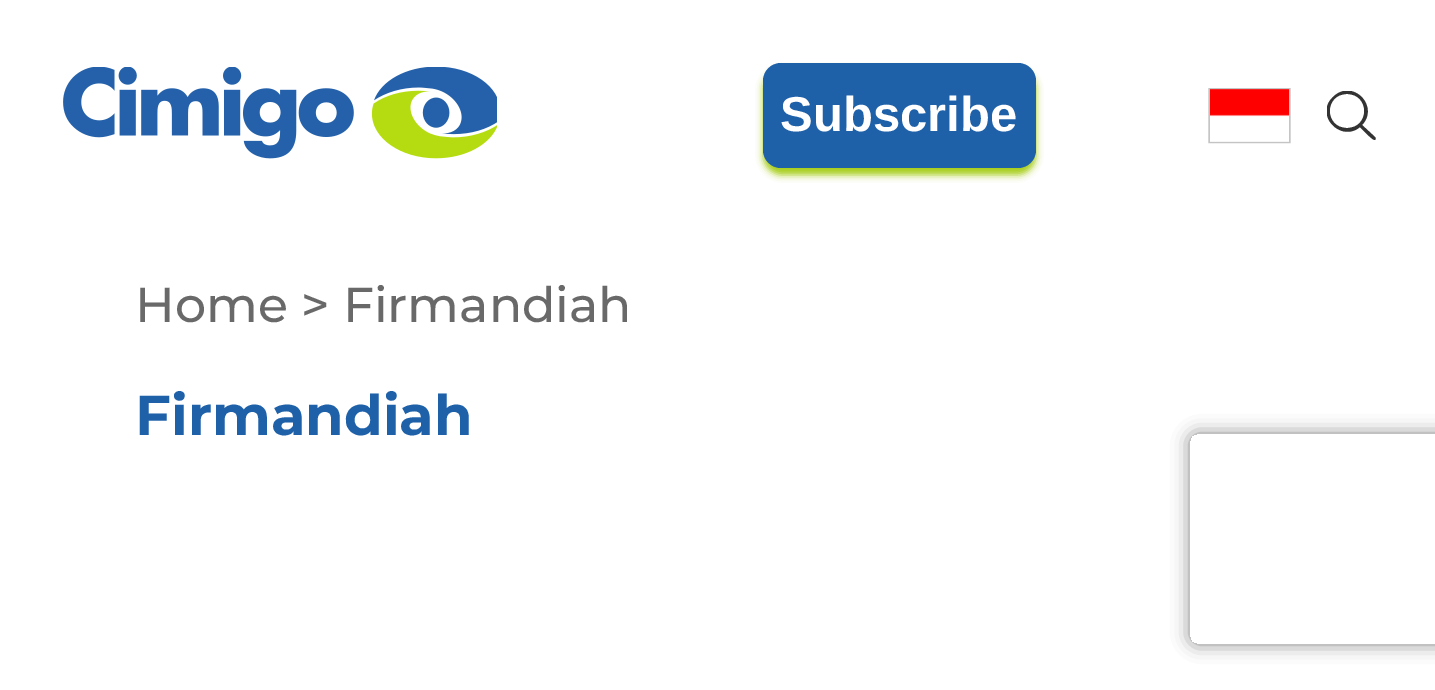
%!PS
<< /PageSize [1435 690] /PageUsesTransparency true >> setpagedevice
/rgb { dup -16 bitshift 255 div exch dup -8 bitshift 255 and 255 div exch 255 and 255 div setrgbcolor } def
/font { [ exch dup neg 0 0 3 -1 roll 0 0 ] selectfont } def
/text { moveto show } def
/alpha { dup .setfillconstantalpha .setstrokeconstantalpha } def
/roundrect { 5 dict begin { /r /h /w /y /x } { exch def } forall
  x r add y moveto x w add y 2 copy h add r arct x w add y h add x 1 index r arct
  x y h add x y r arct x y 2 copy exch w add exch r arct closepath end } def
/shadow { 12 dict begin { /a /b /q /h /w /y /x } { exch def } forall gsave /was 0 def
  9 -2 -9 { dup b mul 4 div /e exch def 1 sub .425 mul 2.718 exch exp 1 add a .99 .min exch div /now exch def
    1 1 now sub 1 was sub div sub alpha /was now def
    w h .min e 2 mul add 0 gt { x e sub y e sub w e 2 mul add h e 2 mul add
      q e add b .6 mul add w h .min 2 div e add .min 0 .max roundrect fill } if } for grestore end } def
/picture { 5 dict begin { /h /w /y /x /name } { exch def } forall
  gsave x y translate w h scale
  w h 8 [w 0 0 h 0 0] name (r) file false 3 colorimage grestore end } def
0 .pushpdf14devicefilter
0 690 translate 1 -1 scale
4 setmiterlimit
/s1 { /LiberationSans-Bold 49 font 16#FFFFFF rgb } def
/s2 { /Montserrat-Medium 49 font 16#696969 rgb } def
/s3 { /Montserrat-Bold 56 font 16#1F61A9 rgb } def
16#FFFFFF rgb
0 0 1435 690 rectfill
(pic1.raw) 63 67 434 92 picture
16#A6CC17 rgb
763 70 273 105 18 3.5 1 shadow
16#1F61A9 rgb
763 63 273 105 18 roundrect fill
s1
(Subscribe) 780 131 text
(pic2.raw) 1208 88 83 56 picture
gsave
1327 91 49 49 rectclip
16#333333 rgb
1375 137 moveto 1362 125 lineto 1380 106 1352 78 1333 97 curveto 1314 115 1341 143 1360 127 curveto 1362 129 1373 141 1375 140 curveto 1376 139 1376 138 1375 137 curveto closepath 1347 128 moveto 1324 128 1324 94 1347 94 curveto 1370 94 1370 128 1347 128 curveto closepath fill
grestore
s2
(Home > Firmandiah) 135 322 text
s3
(Firmandiah) 135 435 text
gsave
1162 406 moveto 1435 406 lineto 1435 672 lineto 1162 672 lineto closepath 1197 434 moveto 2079 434 lineto 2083 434 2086 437 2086 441 curveto 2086 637 lineto 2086 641 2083 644 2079 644 curveto 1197 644 lineto 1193 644 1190 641 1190 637 curveto 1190 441 lineto 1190 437 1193 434 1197 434 curveto closepath eoclip newpath
16#808080 rgb
1190 434 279 210 7 9 1 shadow
grestore
.poppdf14devicefilter showpage
